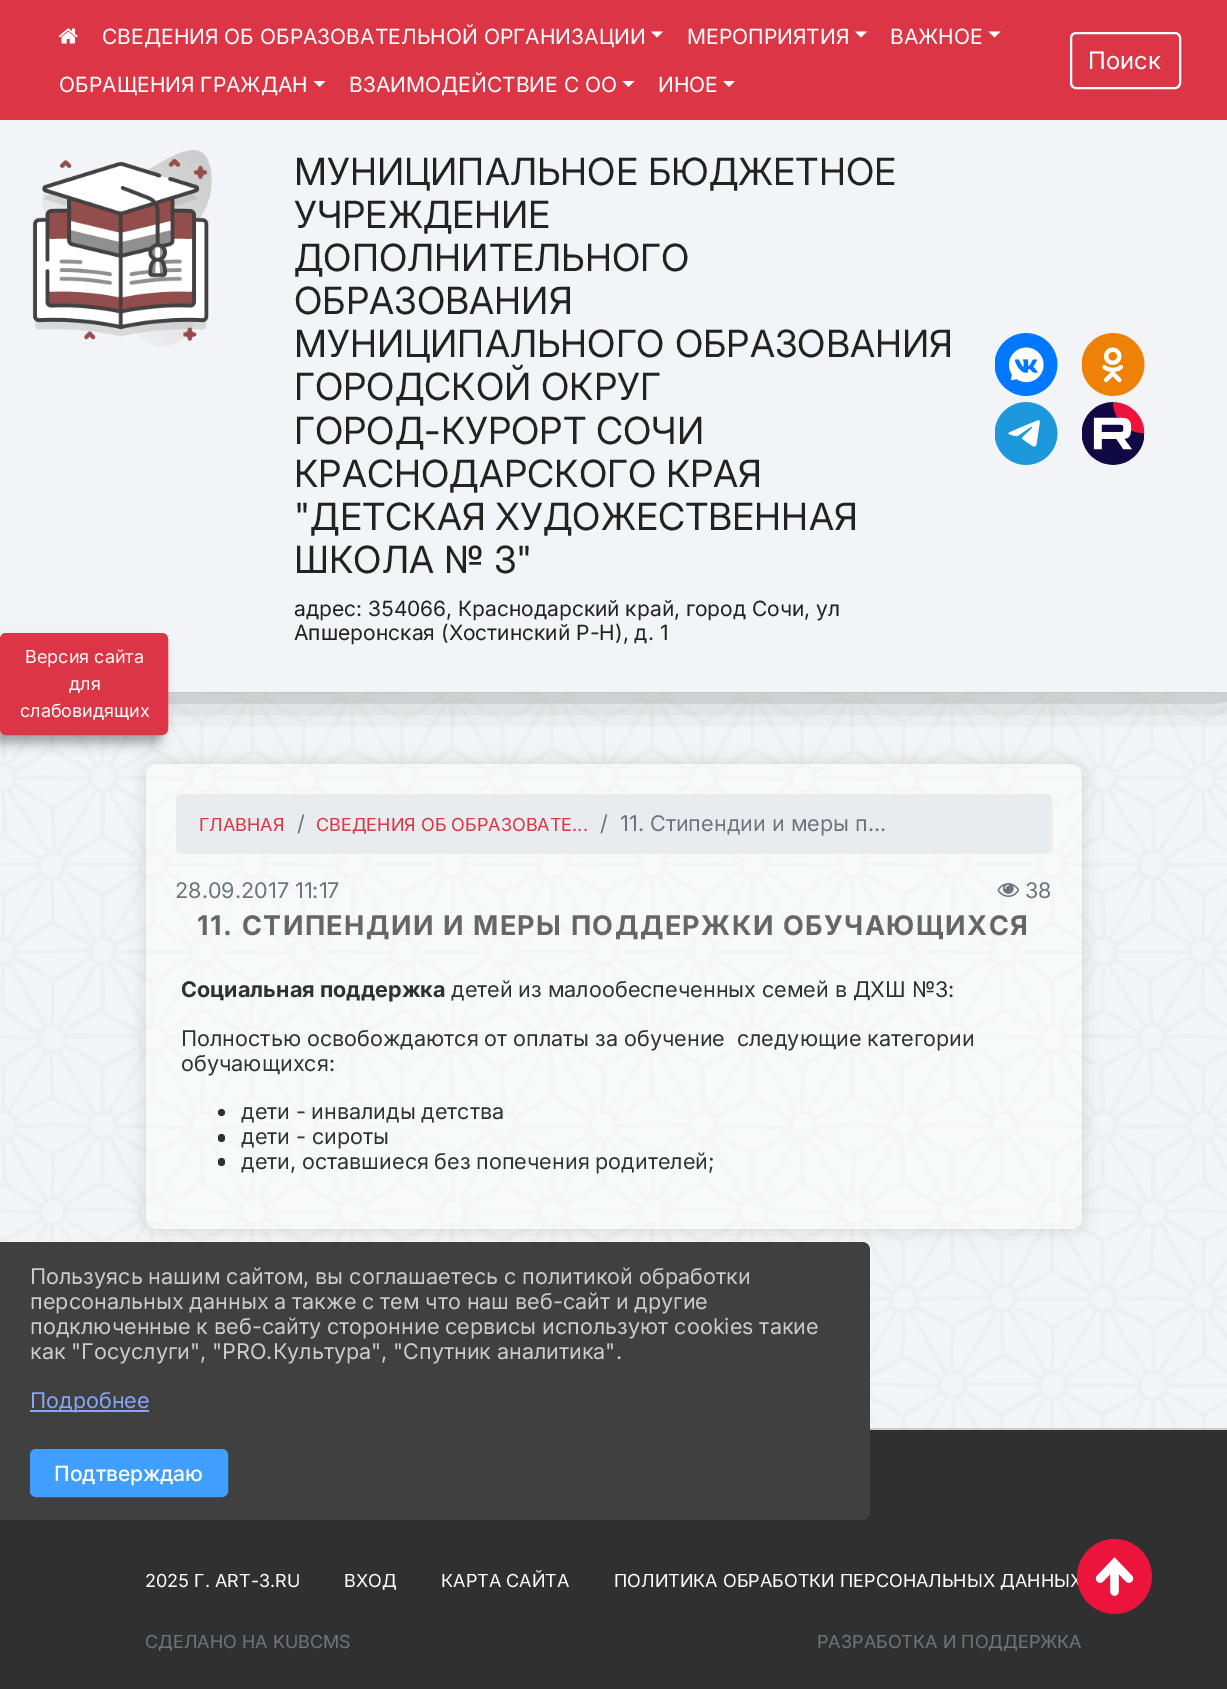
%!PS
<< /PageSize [1227 1689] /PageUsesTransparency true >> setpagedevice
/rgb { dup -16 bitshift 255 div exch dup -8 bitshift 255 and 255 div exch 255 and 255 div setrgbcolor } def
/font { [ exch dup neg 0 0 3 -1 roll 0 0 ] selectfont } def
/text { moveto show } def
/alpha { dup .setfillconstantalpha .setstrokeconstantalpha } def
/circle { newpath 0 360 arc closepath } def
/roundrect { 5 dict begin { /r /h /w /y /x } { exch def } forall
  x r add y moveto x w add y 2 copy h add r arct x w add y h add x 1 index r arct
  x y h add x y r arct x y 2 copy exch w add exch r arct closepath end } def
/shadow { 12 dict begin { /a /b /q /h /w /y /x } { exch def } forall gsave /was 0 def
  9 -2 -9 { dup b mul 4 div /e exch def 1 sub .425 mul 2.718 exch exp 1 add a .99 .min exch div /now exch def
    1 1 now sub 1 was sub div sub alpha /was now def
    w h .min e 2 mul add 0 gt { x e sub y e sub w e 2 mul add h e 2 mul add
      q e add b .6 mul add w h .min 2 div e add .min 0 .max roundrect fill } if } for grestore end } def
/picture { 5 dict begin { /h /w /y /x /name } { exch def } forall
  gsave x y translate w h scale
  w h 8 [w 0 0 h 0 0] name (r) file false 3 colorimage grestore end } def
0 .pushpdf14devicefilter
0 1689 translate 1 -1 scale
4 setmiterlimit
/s1 { /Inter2-Regular 21 font 16#FFFFFF rgb } def
/s2 { /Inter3-Regular 24 font 16#FFFFFF rgb } def
/s3 { /Inter-Regular 37.5 font 16#222222 rgb } def
/s4 { /Inter2-Regular 21 font 16#222222 rgb } def
/s5 { /Inter2-Regular 18 font 16#DC3545 rgb } def
/s6 { /Inter2-Regular 21.6 font 16#6C757D rgb } def
/s7 { /Inter-Bold 21.6 font 16#303133 rgb } def
/s8 { /Inter2-Regular 21.6 font 16#303133 rgb } def
/s9 { /Inter2-Regular 18 font 16#FFFFFF rgb } def
/s10 { /Inter2-Regular 18 font 16#6C757D rgb } def
/s11 { /Inter2-Regular 21.6 font 16#85A6F9 rgb } def
/s12 { /Inter-Medium 21 font 16#FFFFFF rgb } def
16#FFFFFF rgb
0 0 1227 1689 rectfill
(pic1.raw) 0 692 1227 736 picture
16#000000 rgb
0 104 1227 571 0 23 1 shadow
16#DC3545 rgb
0 0 1227 120 rectfill
(pic2.raw) 58 28 20 16 picture
s1
(СВЕДЕНИЯ ОБ ОБРАЗОВАТЕЛЬНОЙ ОРГАНИЗАЦИИ) 102 44 text
651 31.5 moveto 663 31.5 lineto 657 37.5 lineto closepath fill
(МЕРОПРИЯТИЯ) 687 44 text
855 31.5 moveto 867 31.5 lineto 861 37.5 lineto closepath fill
(ВАЖНОЕ) 890 44 text
988.5 31.5 moveto 1000.5 31.5 lineto 994.5 37.5 lineto closepath fill
(ОБРАЩЕНИЯ ГРАЖДАН) 59 92 text
313.5 81 moveto 325.5 81 lineto 319.5 87 lineto closepath fill
(ВЗАИМОДЕЙСТВИЕ С ОО) 349 92 text
622.5 81 moveto 634.5 81 lineto 628.5 87 lineto closepath fill
(ИНОЕ) 658 92 text
723 81 moveto 735 81 lineto 729 87 lineto closepath fill
2 setlinewidth
1071 33 109 55 5 roundrect stroke
s2
(Поиск) 1088 69 text
16#F3F4F7 rgb
0 120 1227 572 rectfill
(pic3.raw) 32 150 180 197 picture
s3
(МУНИЦИПАЛЬНОЕ БЮДЖЕТНОЕ) 294 185 text
(УЧРЕЖДЕНИЕ) 294 228 text
(ДОПОЛНИТЕЛЬНОГО) 294 271 text
(ОБРАЗОВАНИЯ) 294 314 text
(МУНИЦИПАЛЬНОГО ОБРАЗОВАНИЯ) 294 357 text
(ГОРОДСКОЙ ОКРУГ) 294 400 text
(ГОРОД-КУРОРТ СОЧИ) 294 444 text
(КРАСНОДАРСКОГО КРАЯ) 294 487 text
("ДЕТСКАЯ ХУДОЖЕСТВЕННАЯ) 294 530 text
(ШКОЛА № 3") 294 573 text
/Inter2-Regular 21 font
294 616 moveto -0.25 0 32 (адрес: 354066, Краснодарский край, город Сочи, ул) widthshow
(Апшеронская \(Хостинский Р-Н\), д. 1) 294 640 text
(pic4.raw) 995 333 63 63 picture
(pic5.raw) 1082 333 63 63 picture
(pic6.raw) 995 402 63 63 picture
(pic7.raw) 1082 402 63 63 picture
gsave
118 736 moveto 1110 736 lineto 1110 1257 lineto 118 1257 lineto closepath 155 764 moveto 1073 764 lineto 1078 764 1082 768 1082 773 curveto 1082 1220 lineto 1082 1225 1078 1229 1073 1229 curveto 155 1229 lineto 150 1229 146 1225 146 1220 curveto 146 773 lineto 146 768 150 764 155 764 curveto closepath eoclip newpath
16#000000 rgb
146 764 936 465 9 9 0.12 shadow
grestore
0.39 alpha
16#FFFFFF rgb
146 764 936 465 9 roundrect fill
1 alpha
16#E9ECEF rgb
176 794 876 60 6 roundrect fill
s5
(ГЛАВНАЯ) 199 831 text
s6
(/) 297 831 text
s5
(СВЕДЕНИЯ ОБ ОБРАЗОВАТЕ...) 316 831 text
s6
(/) 600 831 text
(11. Стипендии и меры п...) 620 831 text
(28.09.2017 11:17) 175 898 text
(pic8.raw) 997 883 22 14 picture
(38) 1025 898 text
/Inter-Bold 27 font
16#666667 rgb
197 935 moveto 1.5 0 (11. СТИПЕНДИИ И МЕРЫ ПОДДЕРЖКИ ОБУЧАЮЩИХСЯ) ashow
s7
(Социальная поддержка) 181 997 text
/Inter2-Regular 21.6 font
451 997 moveto -0.25 0 32 (детей из малообеспеченных семей в ДХШ №3:) widthshow
181 1046 moveto -0.25 0 32 (Полностью освобождаются от оплаты за обучение  следующие категории) widthshow
(обучающихся:) 181 1071 text
221.5 1112.5 3.5 circle fill
241 1119 moveto -0.5 0 32 (дети - инвалиды детства) widthshow
218 1134 7 8 3.5 roundrect fill
241 1144 moveto -0.25 0 32 (дети - сироты) widthshow
218 1158 7 8 3.5 roundrect fill
241 1169 moveto -0.5 0 32 (дети, оставшиеся без попечения родителей;) widthshow
16#303030 rgb
0 1430 1227 259 rectfill
16#CCCCCC rgb
870 1428 357 2 rectfill
s9
(2025 Г. ART-3.RU) 145 1587 text
(ВХОД) 344 1587 text
(КАРТА САЙТА) 441 1587 text
(ПОЛИТИКА ОБРАБОТКИ ПЕРСОНАЛЬНЫХ ДАННЫХ) 614 1587 text
s10
(СДЕЛАНО НА KUBCMS) 145 1648 text
(РАЗРАБОТКА И ПОДДЕРЖКА) 817 1648 text
(pic9.raw) 1077 1539 75 75 picture
16#000000 rgb
-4 644 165 99 5 6 0.35 shadow
16#DC3545 rgb
1 634 166 100 5 roundrect gsave fill grestore
stroke
s9
(Версия сайта) 25 663 text
(для) 69 690 text
(слабовидящих) 20 717 text
16#404040 rgb
0 1242 moveto 862 1242 lineto 866.5 1242 870 1245.5 870 1250 curveto 870 1512 lineto 870 1516.5 866.5 1520 862 1520 curveto 0 1520 lineto closepath fill
/Inter2-Regular 21.6 font
16#CCCCCC rgb
30 1284 moveto -0.25 0 32 (Пользуясь нашим сайтом, вы соглашаетесь с политикой обработки) widthshow
30 1309 moveto -0.25 0 32 (персональных данных а также с тем что наш веб-сайт и другие) widthshow
30 1334 moveto -0.25 0 32 (подключенные к веб-сайту сторонние сервисы используют cookies такие) widthshow
30 1359 moveto -0.5 0 32 (как "Госуслуги", "PRO.Культура", "Спутник аналитика".) widthshow
16#85A6F9 rgb
30 1410 119 2 rectfill
(Подробнее) 30 1408 text
16#409EFF rgb
31 1450 196 46 5 roundrect gsave fill grestore
stroke
s12
(Подтверждаю) 54 1481 text
.poppdf14devicefilter showpage
